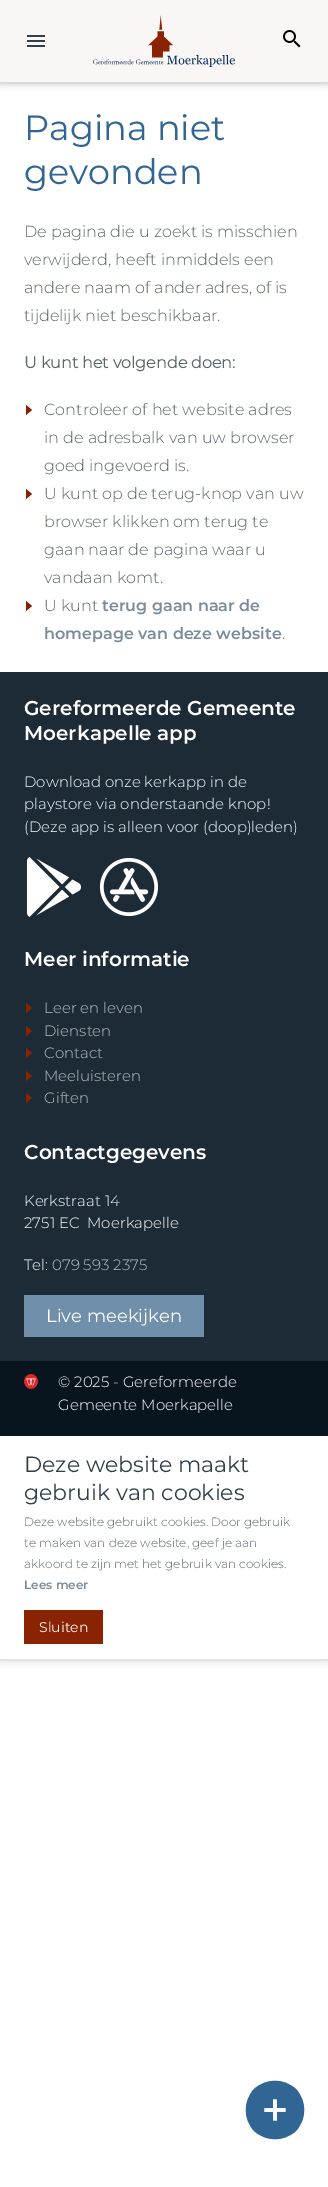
%!PS
<< /PageSize [328 2187] /PageUsesTransparency true >> setpagedevice
/rgb { dup -16 bitshift 255 div exch dup -8 bitshift 255 and 255 div exch 255 and 255 div setrgbcolor } def
/font { [ exch dup neg 0 0 3 -1 roll 0 0 ] selectfont } def
/text { moveto show } def
/alpha { dup .setfillconstantalpha .setstrokeconstantalpha } def
/roundrect { 5 dict begin { /r /h /w /y /x } { exch def } forall
  x r add y moveto x w add y 2 copy h add r arct x w add y h add x 1 index r arct
  x y h add x y r arct x y 2 copy exch w add exch r arct closepath end } def
/shadow { 12 dict begin { /a /b /q /h /w /y /x } { exch def } forall gsave /was 0 def
  9 -2 -9 { dup b mul 4 div /e exch def 1 sub .425 mul 2.718 exch exp 1 add a .99 .min exch div /now exch def
    1 1 now sub 1 was sub div sub alpha /was now def
    w h .min e 2 mul add 0 gt { x e sub y e sub w e 2 mul add h e 2 mul add
      q e add b .6 mul add w h .min 2 div e add .min 0 .max roundrect fill } if } for grestore end } def
/picture { 5 dict begin { /h /w /y /x /name } { exch def } forall
  gsave x y translate w h scale
  w h 8 [w 0 0 h 0 0] name (r) file false 3 colorimage grestore end } def
0 .pushpdf14devicefilter
0 2187 translate 1 -1 scale
4 setmiterlimit
/s1 { /Montserrat-Regular 35 font 16#316694 rgb } def
/s2 { /Montserrat-Light 16 font 16#5B656F rgb } def
/s3 { /Montserrat-Bold 16 font 16#5B656F rgb } def
/s4 { /Montserrat-SemiBold 16 font 16#7A8C9B rgb } def
/s5 { /Montserrat-SemiBold 20 font 16#FFFFFF rgb } def
/s6 { /Montserrat-Light 15 font 16#FFFFFF rgb } def
/s7 { /Montserrat-Light 15 font 16#BBBFC3 rgb } def
/s8 { /Montserrat-Regular 18 font 16#FFFFFF rgb } def
/s9 { /Montserrat-Regular 22 font 16#323F4B rgb } def
/s10 { /Montserrat-Light 12 font 16#5B656F rgb } def
/s11 { /Montserrat-SemiBold 12 font 16#7A8C9B rgb } def
/s12 { /Montserrat-Regular 14 font 16#FFFFFF rgb } def
16#FFFFFF rgb
0 0 328 2187 rectfill
16#000000 rgb
0 1 328 82 0 4 0.3 shadow
16#FAF6F5 rgb
0 0 328 82 rectfill
(pic1.raw) 27 35 18 12 picture
(pic2.raw) 93 15 142 52 picture
(pic3.raw) 283 30 18 18 picture
16#316694 rgb
254 2089 moveto 266 2078 284 2078 296 2089 curveto 307 2101 307 2119 296 2131 curveto 284 2142 266 2142 254 2131 curveto 243 2119 243 2101 254 2089 curveto closepath fill
(pic4.raw) 264 2099 22 22 picture
s1
(Pagina niet) 24 140 text
(gevonden) 24 184 text
s2
(De pagina die u zoekt is misschien) 24 237 text
(verwijderd, heeft inmiddels een) 24 265 text
(andere naam of ander adres, of is) 24 293 text
(tijdelijk niet beschikbaar.) 24 321 text
s3
(U kunt het volgende doen:) 24 368 text
16#892301 rgb
26 415 moveto 26 405 lineto 32 410 lineto closepath fill
s2
(Controleer of het website adres) 44 415 text
(in de adresbalk van uw browser) 44 443 text
(goed ingevoerd is.) 44 471 text
16#892301 rgb
26 499 moveto 26 489 lineto 32 494 lineto closepath fill
s2
(U kunt op de terug-knop van uw) 44 499 text
(browser klikken om terug te) 44 527 text
(gaan naar de pagina waar u) 44 555 text
(vandaan komt.) 44 583 text
16#892301 rgb
26 611 moveto 26 601 lineto 32 606 lineto closepath fill
s2
(U kunt) 44 611 text
s4
(terug gaan naar de) 102 611 text
(homepage van deze website) 44 639 text
s2
(.) 282 639 text
16#1D2B36 rgb
0 672 328 689 rectfill
s5
(Gereformeerde Gemeente) 24 715 text
(Moerkapelle app) 24 740 text
s6
(Download onze kerkapp in de) 24 787 text
(playstore via onderstaande knop!) 24 809 text
(\(Deze app is alleen voor \(doop\)leden\)) 24 832 text
(pic5.raw) 26 857 55 60 picture
(pic6.raw) 99 857 60 60 picture
s5
(Meer informatie) 24 966 text
16#892301 rgb
26 1013 moveto 26 1003 lineto 32 1008 lineto closepath fill
s7
(Leer en leven) 44 1013 text
16#892301 rgb
26 1036 moveto 26 1026 lineto 32 1031 lineto closepath fill
s7
(Diensten) 44 1036 text
16#892301 rgb
26 1058 moveto 26 1048 lineto 32 1053 lineto closepath fill
s7
(Contact) 44 1058 text
16#892301 rgb
26 1081 moveto 26 1071 lineto 32 1076 lineto closepath fill
s7
(Meeluisteren) 44 1081 text
16#892301 rgb
26 1103 moveto 26 1093 lineto 32 1098 lineto closepath fill
s7
(Giften) 44 1103 text
s5
(Contactgegevens) 24 1159 text
s6
(Kerkstraat 14) 24 1206 text
(2751 EC  Moerkapelle) 24 1228 text
(Tel:) 24 1270 text
s7
(079 593 2375) 52 1270 text
16#6F8FAB rgb
24 1295 180 42 rectfill
s8
(Live meekijken) 46 1322 text
16#08151F rgb
0 1361 328 75 rectfill
(pic7.raw) 24 1374 14 15 picture
s6
(© 2025 - Gereformeerde) 58 1387 text
(Gemeente Moerkapelle) 58 1410 text
gsave
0 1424 moveto 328 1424 lineto 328 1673 lineto 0 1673 lineto closepath 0 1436 moveto 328 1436 lineto 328 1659 lineto 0 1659 lineto closepath eoclip newpath
16#000000 rgb
0 1437 328 223 0 4 0.2 shadow
grestore
s9
(Deze website maakt) 24 1472 text
(gebruik van cookies) 24 1500 text
s10
(Deze website gebruikt cookies. Door gebruik) 24 1526 text
(te maken van deze website, geef je aan) 24 1547 text
(akkoord te zijn met het gebruik van cookies.) 24 1568 text
s11
(Lees meer) 24 1589 text
16#892301 rgb
24 1610 79 34 rectfill
s12
(Sluiten) 39 1632 text
.poppdf14devicefilter showpage
